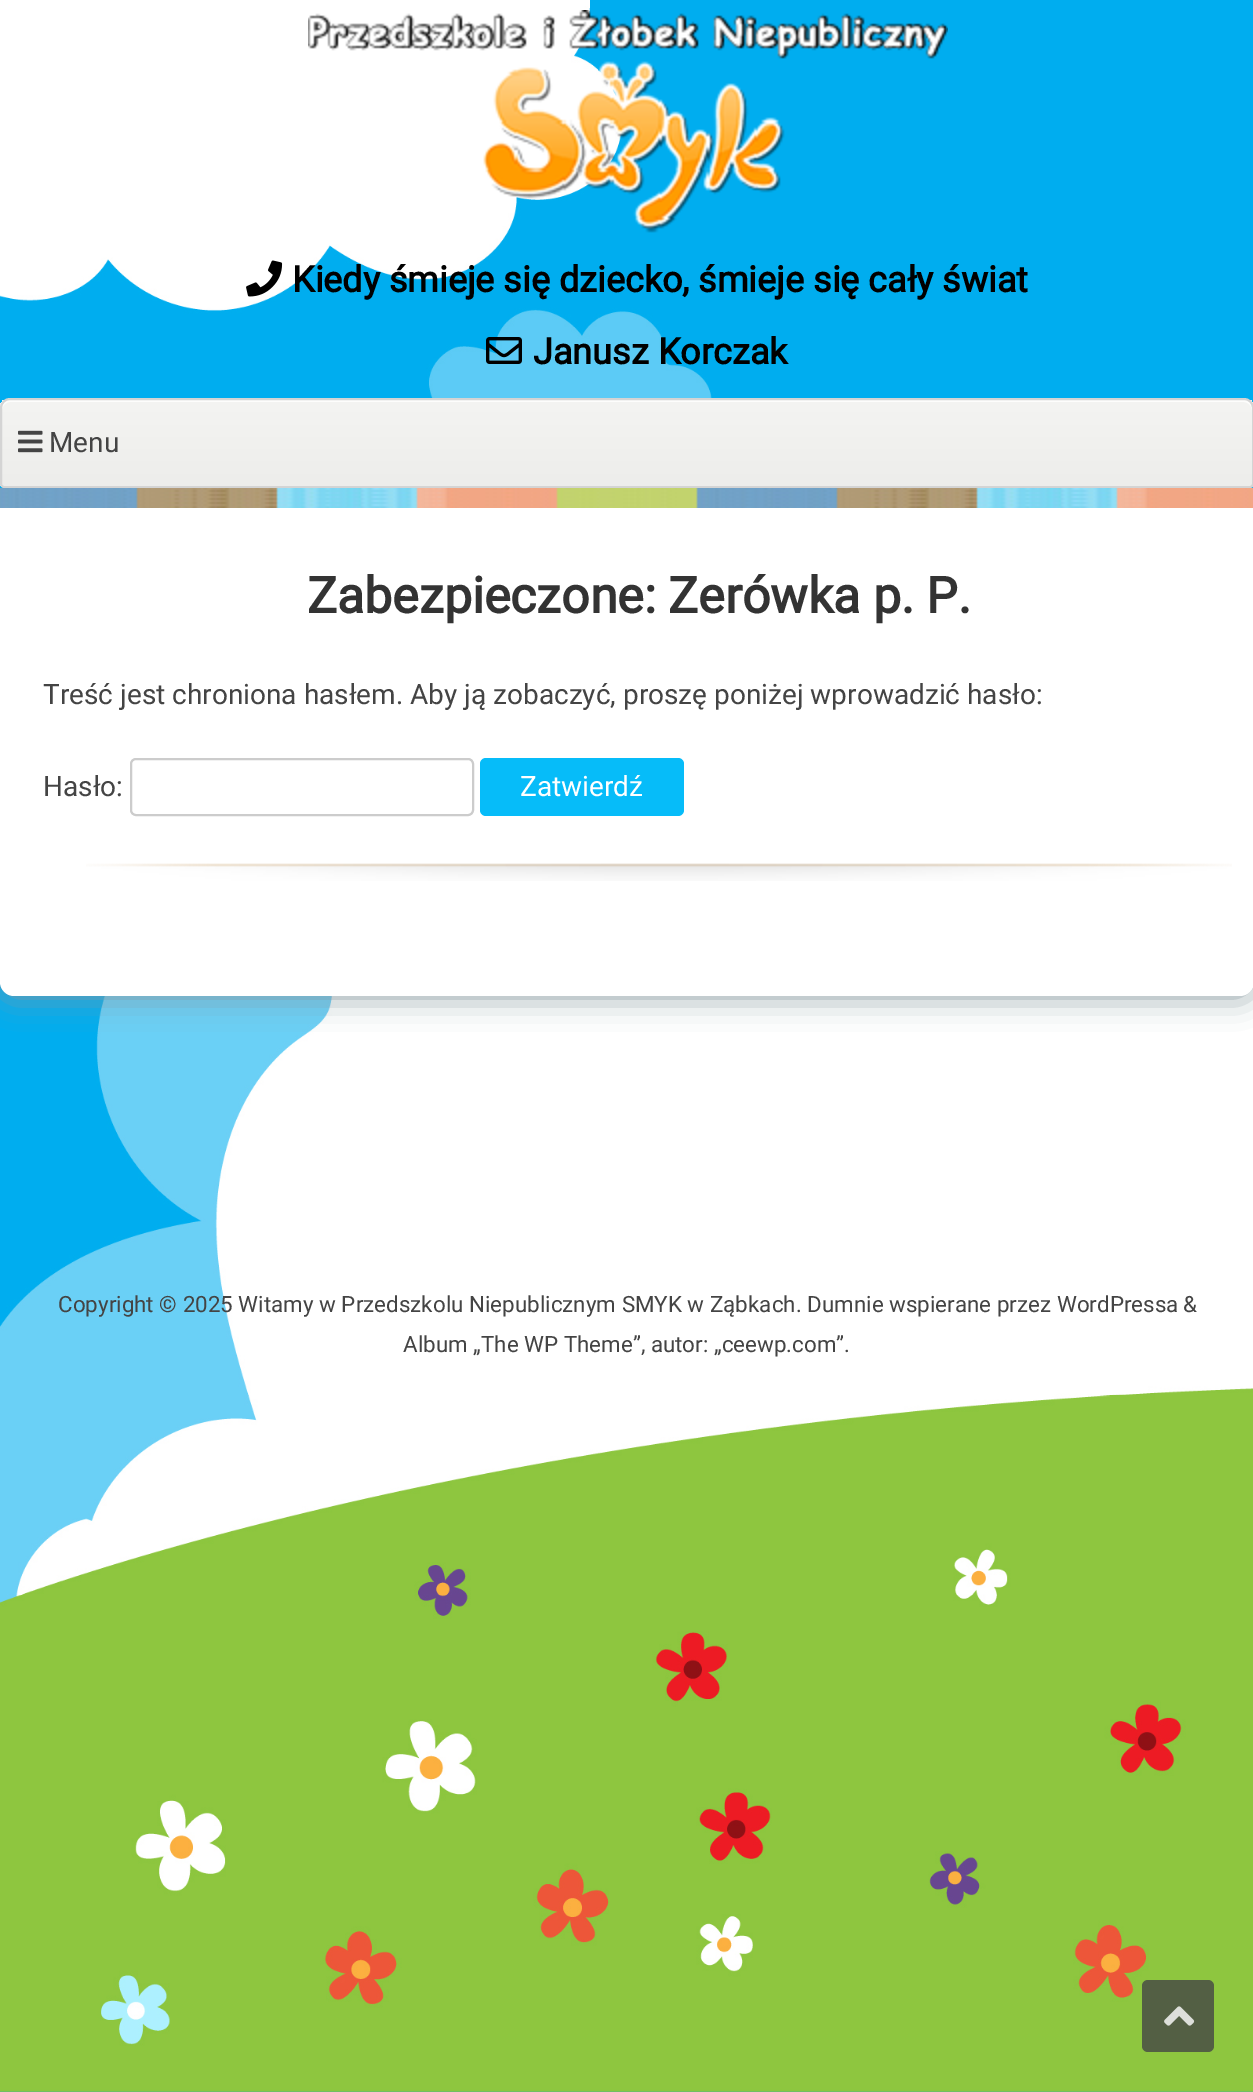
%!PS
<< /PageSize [1253 2092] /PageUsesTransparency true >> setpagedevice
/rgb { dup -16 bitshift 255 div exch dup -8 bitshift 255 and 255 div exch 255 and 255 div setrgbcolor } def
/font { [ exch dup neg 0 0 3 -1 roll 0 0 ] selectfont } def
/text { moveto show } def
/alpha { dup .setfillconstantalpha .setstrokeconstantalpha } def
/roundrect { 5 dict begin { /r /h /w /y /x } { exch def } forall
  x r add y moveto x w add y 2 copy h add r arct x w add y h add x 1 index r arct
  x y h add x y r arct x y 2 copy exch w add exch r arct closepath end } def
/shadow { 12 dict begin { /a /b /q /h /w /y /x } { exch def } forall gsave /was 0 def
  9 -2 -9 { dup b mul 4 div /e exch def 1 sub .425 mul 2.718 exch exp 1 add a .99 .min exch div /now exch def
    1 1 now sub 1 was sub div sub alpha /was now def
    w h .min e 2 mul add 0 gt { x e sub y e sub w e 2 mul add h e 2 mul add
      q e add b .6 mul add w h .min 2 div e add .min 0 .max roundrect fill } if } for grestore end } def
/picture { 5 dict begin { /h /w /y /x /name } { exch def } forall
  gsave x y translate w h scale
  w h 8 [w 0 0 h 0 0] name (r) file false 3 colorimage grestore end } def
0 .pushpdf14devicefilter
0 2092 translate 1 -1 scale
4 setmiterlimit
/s1 { /Roboto-Bold 36 font 16#000000 rgb } def
/s2 { /Roboto-Regular 28 font 16#444444 rgb } def
/s3 { /Roboto-Bold 50 font 16#333333 rgb } def
/s4 { /Roboto-Regular 28 font 16#FFFFFF rgb } def
/s5 { /Roboto-Regular 22.4 font 16#444444 rgb } def
16#FFFFFF rgb
0 0 1253 2092 rectfill
(pic1.raw) 0 0 1253 2092 picture
(pic2.raw) 308 10 640 223 picture
(pic3.raw) 246 260 37 37 picture
s1
(Kiedy śmieje się dziecko, śmieje się cały świat) 292 292 text
(pic4.raw) 486 337 36 27 picture
(Janusz Korczak) 533 364 text
gsave
10 398 moveto 1244 398 lineto 1249.5 398 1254 402.5 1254 408 curveto 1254 484 lineto 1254 486 1252 488 1250 488 curveto 4 488 lineto 2 488 0 486 0 484 curveto 0 408 lineto 0 402.5 4.5 398 10 398 curveto closepath clip newpath
gsave 0 400 moveto 1253 400 lineto 1253 486 lineto 0 486 lineto closepath clip newpath
<< /ShadingType 2 /ColorSpace /DeviceRGB /Coords [627 400 627 486] /Extend [true true] /Function << /FunctionType 2 /Domain [0 1] /C0 [0.957 0.957 0.949] /C1 [0.929 0.929 0.922] /N 1 >> >> shfill grestore
grestore
16#FDFDFC rgb
10 402 moveto 1244 402 lineto 1248 402 1252 406 1252 410 curveto 1252 405 1250 400 1244 400 curveto 10 400 lineto 4 400 2 405 2 410 curveto 2 406 6 402 10 402 curveto closepath fill
16#D4D4D4 rgb
2 setlinewidth
10 399 moveto 1244 399 lineto 1249 399 1253 403 1253 408 curveto 1253 484 lineto 1253 485.5 1251.5 487 1250 487 curveto 4 487 lineto 2.5 487 1 485.5 1 484 curveto 1 408 lineto 1 403 5 399 10 399 curveto closepath stroke
(pic5.raw) 18 430 25 23 picture
s2
(Menu) 49 452 text
(pic6.raw) 0 488 1253 20 picture
gsave
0 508 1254 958 rectclip
16#85969F rgb
0 508 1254 488 14 16 1 shadow
grestore
16#FFFFFF rgb
0 508 moveto 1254 508 lineto 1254 982 lineto 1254 989.5 1247.5 996 1240 996 curveto 14 996 lineto 6.5 996 0 989.5 0 982 curveto closepath fill
(pic7.raw) 86 863 1146 18 picture
s3
(Zabezpieczone: Zerówka p. P.) 307 613 text
s2
(Treść jest chroniona hasłem. Aby ją zobaczyć, proszę poniżej wprowadzić hasło:) 43 704 text
(Hasło:) 43 796 text
16#CCCCCC rgb
131 759 342 56 5 roundrect stroke
16#06BCF9 rgb
480 758 204 58 6 roundrect fill
s4
(Zatwierdź) 520 796 text
s5
(Copyright © 2025 Witamy w Przedszkolu Niepublicznym SMYK w Ząbkach. Dumnie wspierane przez WordPressa) 58 1312 text
(&) 1183 1312 text
(Album „The WP Theme”, autor: „ceewp.com”.) 403 1352 text
16#535F44 rgb
1142 1980 72 72 6 roundrect fill
(pic8.raw) 1164 2006 31 20 picture
.poppdf14devicefilter showpage
